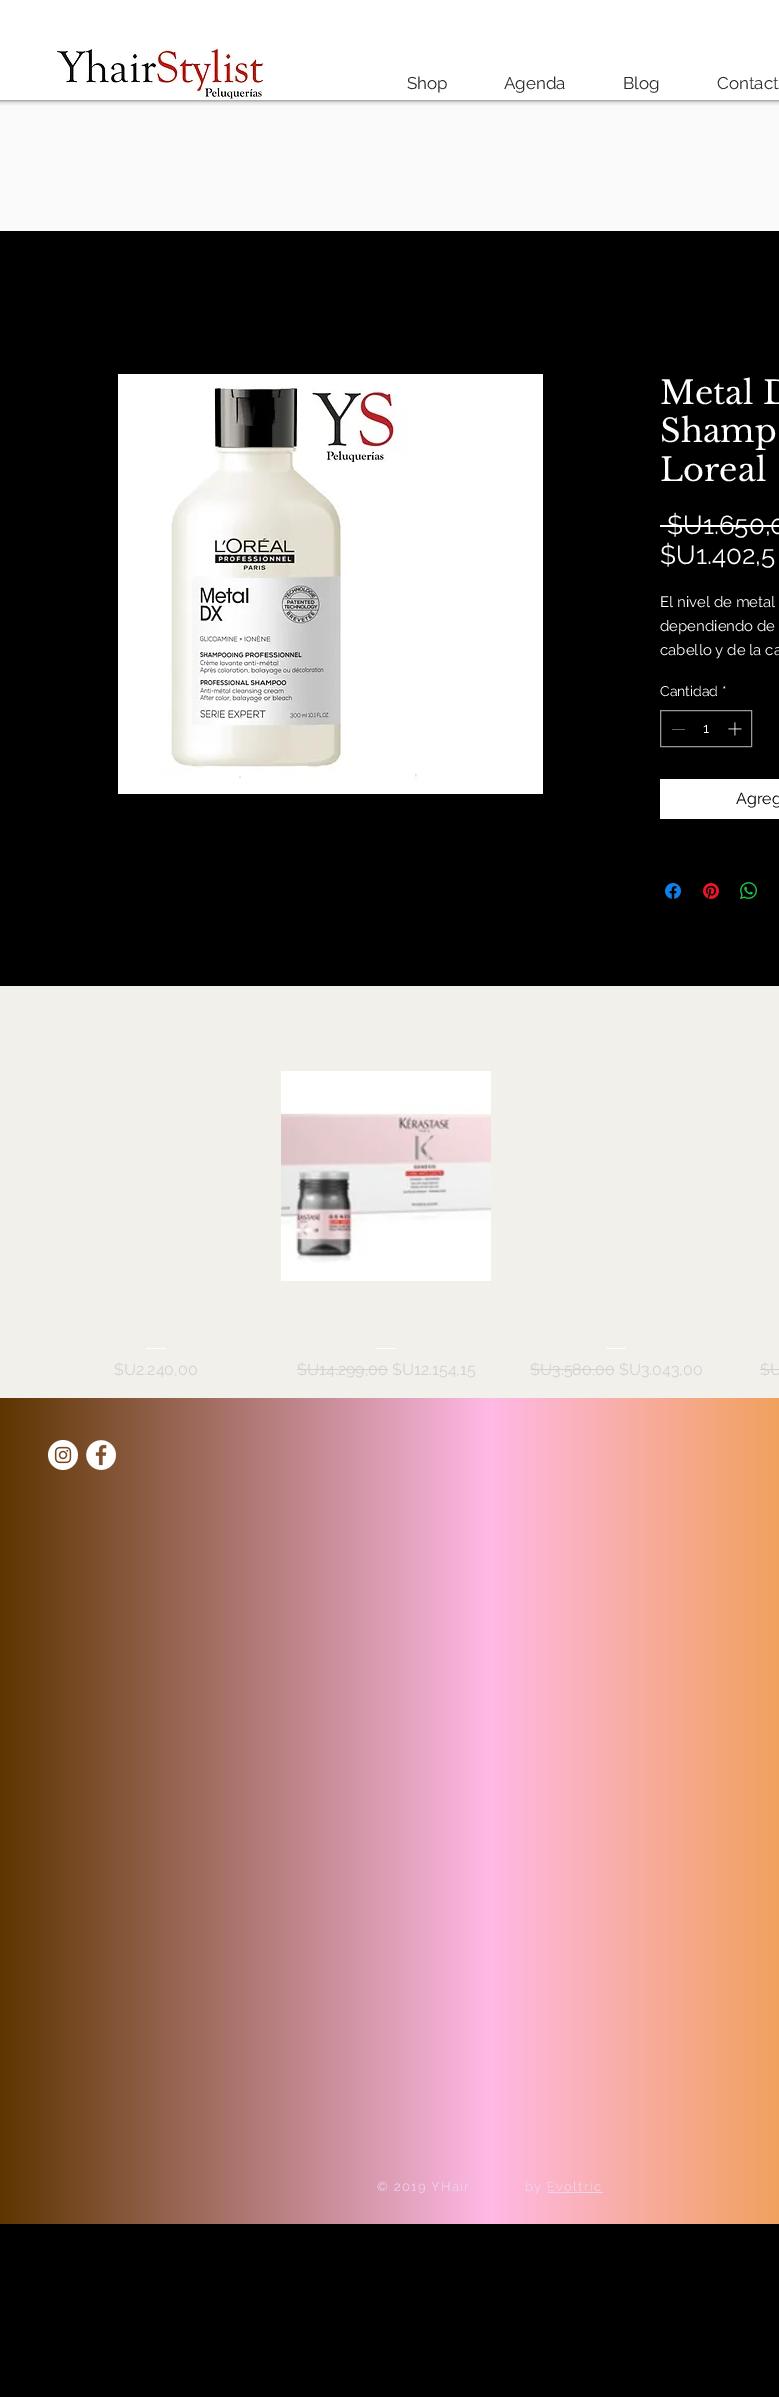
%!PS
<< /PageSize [779 2397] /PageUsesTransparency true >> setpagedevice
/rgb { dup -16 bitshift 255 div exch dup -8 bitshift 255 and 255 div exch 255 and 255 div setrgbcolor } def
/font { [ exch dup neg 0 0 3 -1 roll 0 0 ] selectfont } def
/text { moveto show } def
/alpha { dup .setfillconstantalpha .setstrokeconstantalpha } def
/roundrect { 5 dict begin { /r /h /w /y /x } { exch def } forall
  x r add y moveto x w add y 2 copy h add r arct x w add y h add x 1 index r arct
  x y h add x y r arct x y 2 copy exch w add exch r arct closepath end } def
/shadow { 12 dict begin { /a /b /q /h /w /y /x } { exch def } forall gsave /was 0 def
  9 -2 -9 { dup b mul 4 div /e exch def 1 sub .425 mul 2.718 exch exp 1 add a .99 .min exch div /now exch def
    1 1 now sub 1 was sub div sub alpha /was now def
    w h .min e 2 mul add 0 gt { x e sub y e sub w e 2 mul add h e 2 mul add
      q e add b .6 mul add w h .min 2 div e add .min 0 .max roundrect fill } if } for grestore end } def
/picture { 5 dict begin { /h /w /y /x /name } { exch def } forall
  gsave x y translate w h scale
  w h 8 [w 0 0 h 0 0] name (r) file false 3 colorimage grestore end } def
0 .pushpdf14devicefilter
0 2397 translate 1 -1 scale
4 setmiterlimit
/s1 { /Raleway-Regular 17 font 16#2E282F rgb } def
/s2 { /LibreBaskerville-Regular 32 font 16#FFFFFF rgb } def
/s3 { /Raleway-Regular 26 font 16#FFFFFF rgb } def
/s4 { /Raleway-Regular 15 font 16#FFFFFF rgb } def
/s5 { /Raleway-Regular 14 font 16#FFFFFF rgb } def
/s6 { /Raleway-Regular 16 font 16#000000 rgb } def
/s7 { /Raleway-Regular 16 font 16#D1D1D1 rgb } def
16#000000 rgb
0 0 779 2397 rectfill
16#FAFAFA rgb
0 100 779 131 rectfill
16#000000 rgb
0 0 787 100 0 2.5 0.7 shadow
16#FFFFFF rgb
0 0 779 100 rectfill
(pic1.raw) 55 48 211 51 picture
s1
(Shop) 407 89 text
(Agenda) 504 89 text
(Blog) 623 89 text
(Contact) 717 89 text
(pic2.raw) 118 374 425 420 picture
s2
(Metal D) 660 404 text
(Shamp) 660 442 text
(Loreal) 660 481 text
s3
($U1.650,0) 667 534 text
660 525 119 2 rectfill
($U1.402,5) 660 564 text
s4
(El nivel de metal) 660 607 text
(dependiendo de) 660 631 text
(cabello y de la ca) 660 655 text
s5
(Cantidad) 660 696 text
(*) 722 696 text
16#999999 rgb
660.5 710.5 91 36 rectstroke
16#646464 rgb
672 729 13 1 rectfill
s5
(1) 703 733 text
(pic3.raw) 728 722 14 14 picture
660 779 119 40 rectfill
s6
(Agreg) 736 804 text
(pic4.raw) 665 883 16 16 picture
(pic5.raw) 703 883 16 16 picture
(pic6.raw) 740 882 17 17 picture
16#F2F0EB rgb
0 986 779 412 rectfill
16#FFFFFF rgb
146 1348 20 1 rectfill
s7
($U2.240,00) 114 1375 text
(pic7.raw) 281 1071 210 210 picture
16#FFFFFF rgb
376 1348 20 1 rectfill
s7
($U14.299,00 $U12.154,15) 297 1375 text
297 1369 91 1 rectfill
16#FFFFFF rgb
606 1348 20 1 rectfill
s7
($U3.580,00 $U3.043,00) 530 1375 text
530 1369 84 1 rectfill
($U) 760 1375 text
760 1369 19 1 rectfill
gsave 0 1398 moveto 779 1398 lineto 779 2224 lineto 0 2224 lineto closepath clip newpath
<< /ShadingType 2 /ColorSpace /DeviceRGB /Coords [0 1811 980 1811] /Extend [true true] /Function << /FunctionType 3 /Domain [0 1] /Functions [<< /FunctionType 2 /Domain [0 1] /C0 [0.365 0.208 0] /C1 [1 0.725 0.898] /N 1 >> << /FunctionType 2 /Domain [0 1] /C0 [1 0.725 0.898] /C1 [0.906 0.569 0] /N 1 >>] /Bounds [0.5] /Encode [0 1 0 1] >> >> shfill grestore
(pic8.raw) 48 1440 30 30 picture
(pic9.raw) 86 1440 30 30 picture
/Raleway-Regular 13 font
16#EED3F2 rgb
377 2191 moveto 1.25 0 (© 2019 YHair) ashow
525 2191 moveto 1.25 0 (by Evoltric) ashow
548 2192 55 1 rectfill
.poppdf14devicefilter showpage
